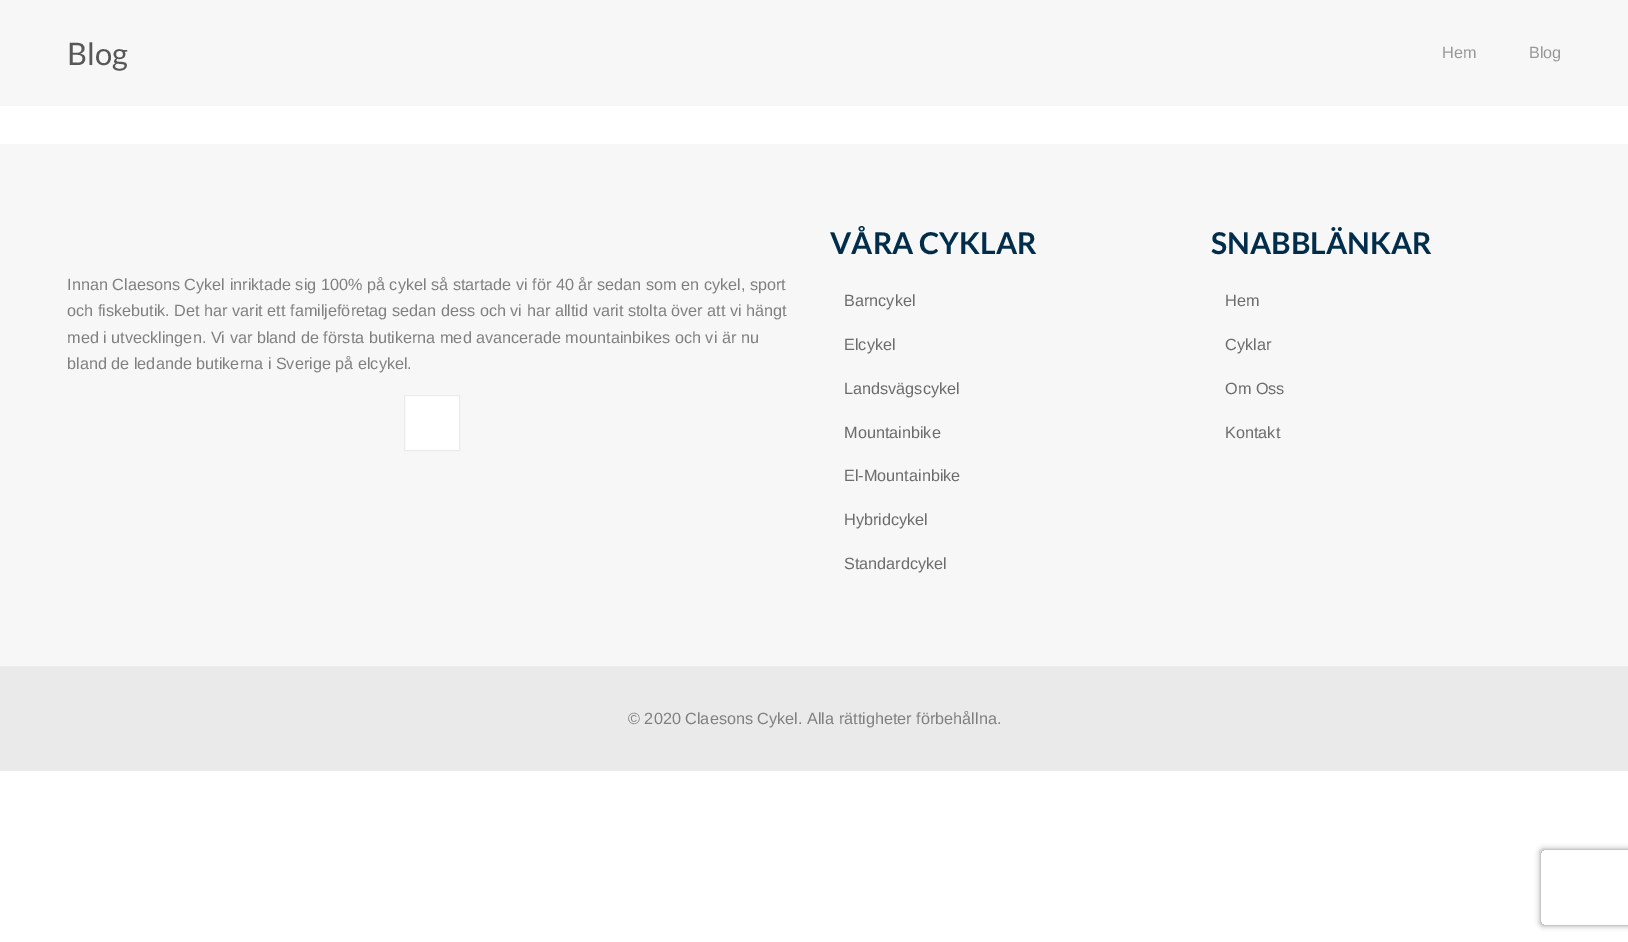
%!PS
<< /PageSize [1628 942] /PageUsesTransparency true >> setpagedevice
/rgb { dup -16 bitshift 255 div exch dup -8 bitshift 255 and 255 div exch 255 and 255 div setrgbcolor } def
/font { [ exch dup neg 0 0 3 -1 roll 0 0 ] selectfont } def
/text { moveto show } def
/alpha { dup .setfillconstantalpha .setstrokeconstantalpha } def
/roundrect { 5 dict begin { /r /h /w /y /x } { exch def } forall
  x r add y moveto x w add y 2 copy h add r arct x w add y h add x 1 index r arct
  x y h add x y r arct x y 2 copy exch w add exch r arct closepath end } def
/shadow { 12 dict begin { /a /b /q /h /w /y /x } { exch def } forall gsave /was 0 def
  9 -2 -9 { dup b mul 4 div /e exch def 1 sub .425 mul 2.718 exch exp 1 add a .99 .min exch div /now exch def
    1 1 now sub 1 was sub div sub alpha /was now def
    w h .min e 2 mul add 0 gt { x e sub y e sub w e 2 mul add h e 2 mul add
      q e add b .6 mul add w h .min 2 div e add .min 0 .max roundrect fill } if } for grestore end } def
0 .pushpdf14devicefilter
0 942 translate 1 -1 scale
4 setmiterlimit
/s1 { /Lato-Regular 31 font 16#585858 rgb } def
/s2 { /LiberationSans-Regular 16.25 font 16#989898 rgb } def
/s3 { /LiberationSans-Regular 16.25 font 16#808080 rgb } def
/s4 { /Lato-Bold 30 font 16#012D4A rgb } def
/s5 { /LiberationSans-Regular 16.25 font 16#6C6C6C rgb } def
16#FFFFFF rgb
0 0 1628 942 rectfill
16#F7F7F7 rgb
0 0 1628 106 rectfill
s1
(Blog) 67 65 text
s2
(Hem) 1442 58 text
(Blog) 1529 58 text
16#F7F7F7 rgb
0 144 1628 522 rectfill
s3
(Innan Claesons Cykel inriktade sig 100% på cykel så startade vi för 40 år sedan som en cykel, sport) 67 290 text
(och fiskebutik. Det har varit ett familjeföretag sedan dess och vi har alltid varit stolta över att vi hängt) 67 316 text
(med i utvecklingen. Vi var bland de första butikerna med avancerade mountainbikes och vi är nu) 67 343 text
(bland de ledande butikerna i Sverige på elcykel.) 67 369 text
16#FFFFFF rgb
404.5 395.5 moveto 459.5 395.5 lineto 459.5 450.5 lineto 404.5 450.5 lineto closepath gsave fill grestore
16#EBEBEB rgb
stroke
s4
(VÅRA CYKLAR) 830 254 text
s5
(Barncykel) 844 306 text
(Elcykel) 844 350 text
(Landsvägscykel) 844 394 text
(Mountainbike) 844 438 text
(El-Mountainbike) 844 481 text
(Hybridcykel) 844 525 text
(Standardcykel) 844 569 text
s4
(SNABBLÄNKAR) 1211 254 text
s5
(Hem) 1225 306 text
(Cyklar) 1225 350 text
(Om Oss) 1225 394 text
(Kontakt) 1225 438 text
16#EAEAEA rgb
0 667 1628 104 rectfill
16#ECECEC rgb
0 666 1628 1 rectfill
s3
(© 2020 Claesons Cykel. Alla rättigheter förbehållna.) 628 724 text
gsave
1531 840 moveto 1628 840 lineto 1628 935 lineto 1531 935 lineto closepath 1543.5 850 moveto 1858.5 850 lineto 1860 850 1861 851 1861 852.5 curveto 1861 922.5 lineto 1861 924 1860 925 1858.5 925 curveto 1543.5 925 lineto 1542 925 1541 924 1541 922.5 curveto 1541 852.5 lineto 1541 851 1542 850 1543.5 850 curveto closepath eoclip newpath
1541 850 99 75 2.5 3 1 shadow
grestore
.poppdf14devicefilter showpage
